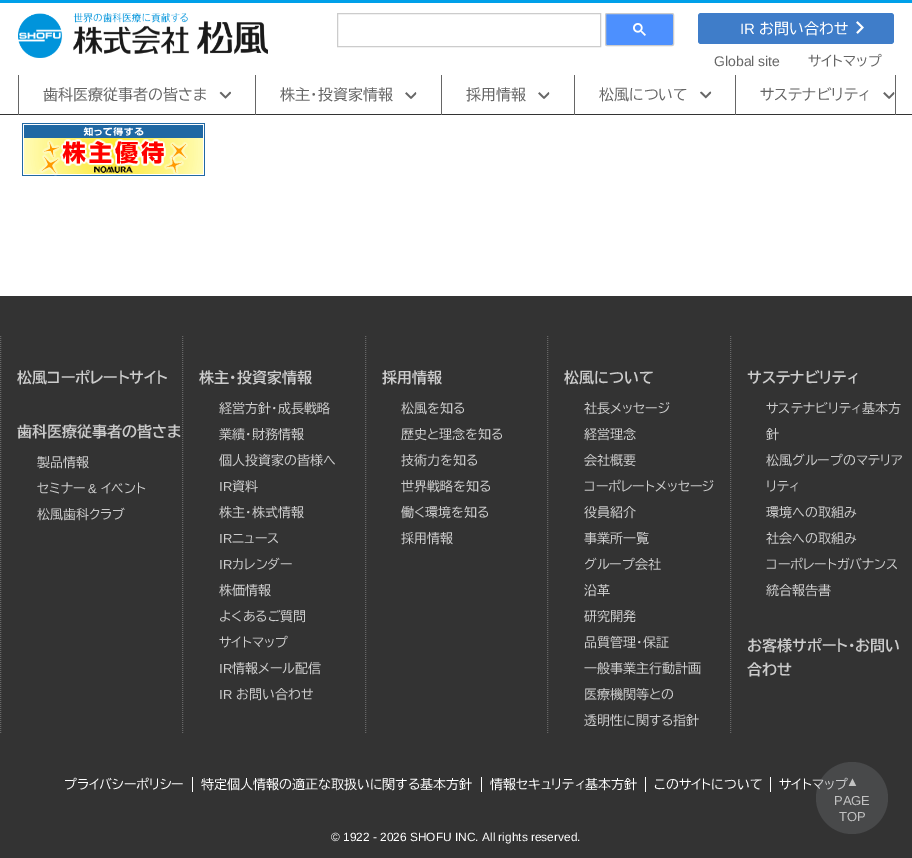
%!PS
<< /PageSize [912 858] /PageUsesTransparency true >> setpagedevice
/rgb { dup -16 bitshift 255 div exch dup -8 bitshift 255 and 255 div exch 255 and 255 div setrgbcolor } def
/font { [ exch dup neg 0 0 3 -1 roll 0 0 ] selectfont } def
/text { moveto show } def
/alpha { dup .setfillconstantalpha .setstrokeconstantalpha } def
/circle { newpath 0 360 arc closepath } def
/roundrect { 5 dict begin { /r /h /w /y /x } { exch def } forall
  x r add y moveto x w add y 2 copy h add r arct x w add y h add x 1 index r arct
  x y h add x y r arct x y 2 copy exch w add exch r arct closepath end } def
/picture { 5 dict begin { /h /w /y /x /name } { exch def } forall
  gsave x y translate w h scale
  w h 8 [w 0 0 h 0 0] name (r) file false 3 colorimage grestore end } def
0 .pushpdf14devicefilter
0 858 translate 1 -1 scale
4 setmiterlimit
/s1 { /LiberationSans-Regular 15 font 16#FFFFFF rgb } def
/s2 { /BIZUDPGothic-Regular 15 font 16#FFFFFF rgb } def
/s3 { /LiberationSans-Regular 14 font 16#666666 rgb } def
/s4 { /BIZUDPGothic-Regular 14 font 16#666666 rgb } def
/s5 { /BIZUDPGothic-Regular 15 font 16#666666 rgb } def
/s6 { /BIZUDPGothic-Bold 15 font 16#CCCCCC rgb } def
/s7 { /BIZUDPGothic-Regular 13 font 16#CCCCCC rgb } def
/s8 { /LiberationSans-Regular 13 font 16#CCCCCC rgb } def
/s9 { /BIZUDPGothic-Regular 13 font 16#FFFFFF rgb } def
/s10 { /LiberationSans-Regular 11.9 font 16#FFFFFF rgb } def
/s11 { /LiberationSans-Regular 13 font 16#C2C2C2 rgb } def
16#FFFFFF rgb
0 0 912 858 rectfill
16#00A0E9 rgb
0 0 912 3 rectfill
16#333333 rgb
0 114 912 1 rectfill
(pic1.raw) 18 13 250 45 picture
16#CCCCCC rgb
337.5 13.5 263 33 rectstroke
16#4D90FE rgb
605.5 13.5 68 32 1.5 roundrect gsave fill grestore
16#CCCCCC rgb
stroke
(pic2.raw) 633 23 13 13 picture
16#3F7DC9 rgb
698 13 196 31 3 roundrect fill
s1
(IR) 740 34 text
s2
(お問い合わせ) 759 34 text
(pic3.raw) 856 21 8 13 picture
s3
(Global site) 714 66 text
s4
(サイトマップ) 808 66 text
895 75 1 40 rectfill
18 75 1 40 rectfill
255 75 1 40 rectfill
s5
(歯科医療従事者の皆さま) 43 100 text
(pic4.raw) 219 91 12 8 picture
441 75 1 40 rectfill
(株主･投資家情報) 280 100 text
(pic5.raw) 405 92 12 7 picture
574 75 1 40 rectfill
(採用情報) 466 100 text
(pic5.raw) 538 92 12 7 picture
735 75 1 40 rectfill
(松風について) 599 100 text
(pic6.raw) 700 91 12 8 picture
(サステナビリティ) 760 100 text
(pic7.raw) 883 92 12 7 picture
(pic8.raw) 22 123 183 53 picture
16#333333 rgb
0 296 912 562 rectfill
16#666666 rgb
[1 1] 0 setdash
0.5 336 moveto 0.5 734 lineto stroke
s6
(松風コーポレートサイト) 17 383 text
(歯科医療従事者の皆さま) 17 437 text
s7
(製品情報) 37 467 text
(セミナー) 37 493 text
s8
(&) 88 493 text
s7
(イベント) 101 493 text
(松風歯科クラブ) 37 519 text
16#666666 rgb
182.5 336 moveto 182.5 734 lineto stroke
s6
(株主･投資家情報) 199 383 text
s7
(経営方針･成長戦略) 219 413 text
(業績･財務情報) 219 439 text
(個人投資家の皆様へ) 219 465 text
s8
(IR) 219 491 text
s7
(資料) 232 491 text
(株主・株式情報) 219 517 text
s8
(IR) 219 543 text
s7
(ニュース) 232 543 text
s8
(IR) 219 569 text
s7
(カレンダー) 232 569 text
(株価情報) 219 595 text
(よくあるご質問) 219 621 text
(サイトマップ) 219 647 text
s8
(IR) 219 673 text
s7
(情報メール配信) 232 673 text
s8
(IR) 219 699 text
s7
(お問い合わせ) 236 699 text
16#666666 rgb
365.5 336 moveto 365.5 734 lineto stroke
s6
(採用情報) 382 383 text
s7
(松風を知る) 401 413 text
(歴史と理念を知る) 401 439 text
(技術力を知る) 401 465 text
(世界戦略を知る) 401 491 text
(働く環境を知る) 401 517 text
(採用情報) 401 543 text
16#666666 rgb
547.5 336 moveto 547.5 734 lineto stroke
s6
(松風について) 564 383 text
s7
(社長メッセージ) 584 413 text
(経営理念) 584 439 text
(会社概要) 584 465 text
(コーポレートメッセージ) 584 491 text
(役員紹介) 584 517 text
(事業所一覧) 584 543 text
(グループ会社) 584 569 text
(沿革) 584 595 text
(研究開発) 584 621 text
(品質管理・保証) 584 647 text
(一般事業主行動計画) 584 673 text
(医療機関等との) 584 699 text
(透明性に関する指針) 584 725 text
16#666666 rgb
730.5 336 moveto 730.5 734 lineto stroke
s6
(サステナビリティ) 747 383 text
s7
(サステナビリティ基本方) 766 413 text
(針) 766 439 text
(松風グループのマテリア) 766 465 text
(リティ) 766 491 text
(環境への取組み) 766 517 text
(社会への取組み) 766 543 text
(コーポレートガバナンス) 766 569 text
(統合報告書) 766 595 text
s6
(お客様サポート・お問い) 747 651 text
(合わせ) 747 675 text
s9
(プライバシーポリシー) 64 789 text
192 777 1 15 rectfill
(特定個人情報の適正な取扱いに関する基本方針) 201 789 text
481 777 1 15 rectfill
(情報セキュリティ基本方針) 490 789 text
645 777 1 15 rectfill
(このサイトについて) 654 789 text
770 777 1 15 rectfill
(サイトマップ) 779 789 text
s10
(© 1922 - 2026 SHOFU INC. All rights reserved.) 331 841 text
0.35 alpha
16#6E7175 rgb
852 798 36 circle fill
1 alpha
s11
(▲) 846 786 text
(PAGE) 834 805 text
(TOP) 839 821 text
.poppdf14devicefilter showpage
